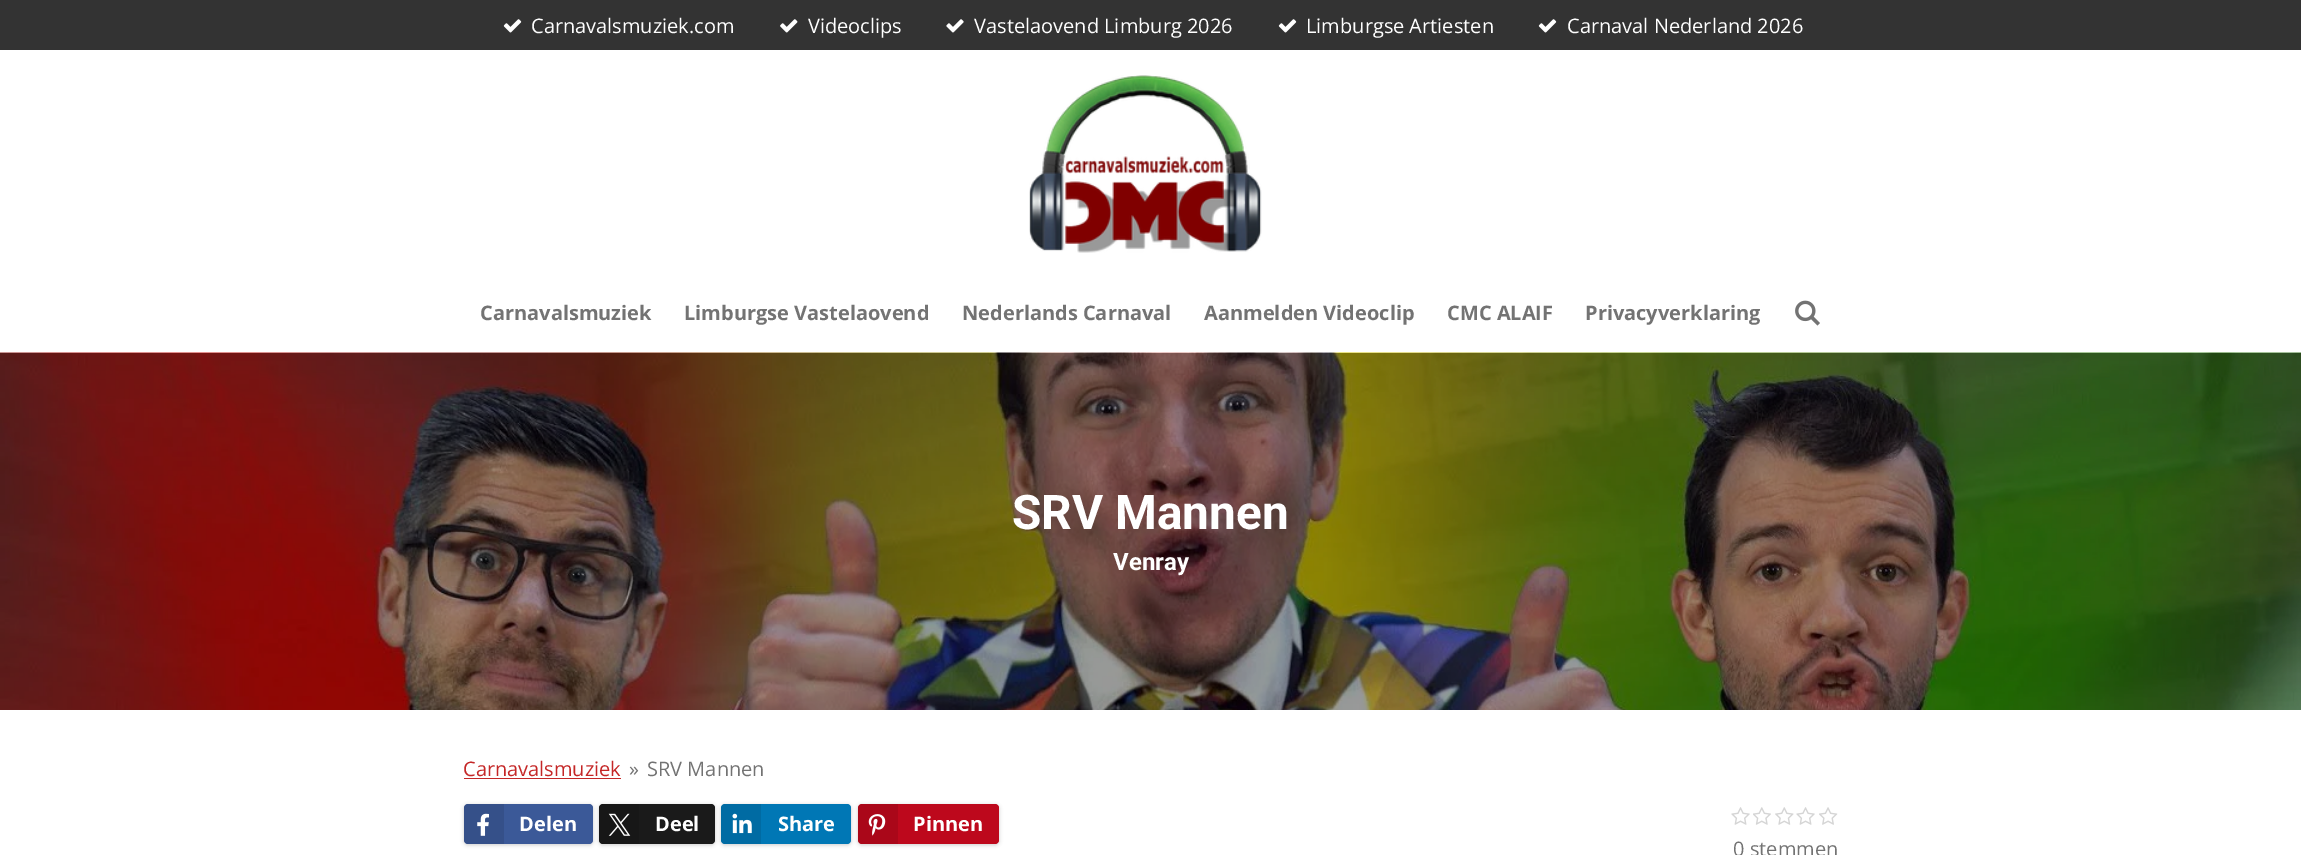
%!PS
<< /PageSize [2301 855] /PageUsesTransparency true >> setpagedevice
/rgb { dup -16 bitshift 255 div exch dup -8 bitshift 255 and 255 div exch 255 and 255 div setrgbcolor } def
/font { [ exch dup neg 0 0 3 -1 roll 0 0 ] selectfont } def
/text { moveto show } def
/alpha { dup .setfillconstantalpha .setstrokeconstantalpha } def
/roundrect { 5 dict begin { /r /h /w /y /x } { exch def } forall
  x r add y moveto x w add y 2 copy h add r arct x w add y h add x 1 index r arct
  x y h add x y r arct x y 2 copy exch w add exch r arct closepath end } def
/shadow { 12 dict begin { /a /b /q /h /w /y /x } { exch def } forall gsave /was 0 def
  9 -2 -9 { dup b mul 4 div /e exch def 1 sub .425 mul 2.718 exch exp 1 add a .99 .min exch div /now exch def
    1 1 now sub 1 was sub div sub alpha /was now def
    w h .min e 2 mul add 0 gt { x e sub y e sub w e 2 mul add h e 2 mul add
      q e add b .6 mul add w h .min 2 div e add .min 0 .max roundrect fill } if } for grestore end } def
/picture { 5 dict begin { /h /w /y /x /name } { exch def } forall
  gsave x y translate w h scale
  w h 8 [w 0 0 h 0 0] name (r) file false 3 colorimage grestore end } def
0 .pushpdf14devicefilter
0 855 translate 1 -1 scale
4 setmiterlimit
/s1 { /OpenSans-Regular 20 font 16#FFFFFF rgb } def
/s2 { /OpenSans-Bold 20 font 16#737373 rgb } def
/s3 { /Roboto-Bold 47.75 font 16#FFFFFF rgb } def
/s4 { /Roboto-Bold 24 font 16#FFFFFF rgb } def
/s5 { /OpenSans-Regular 20 font 16#C42727 rgb } def
/s6 { /OpenSans-Regular 20 font 16#737373 rgb } def
/s7 { /OpenSans-Bold 20 font 16#FFFFFF rgb } def
16#FFFFFF rgb
0 0 2301 855 rectfill
16#333333 rgb
0 0 2301 50 rectfill
(pic1.raw) 503 19 19 14 picture
s1
(Carnavalsmuziek.com) 531 33 text
(pic2.raw) 780 19 18 14 picture
(Videoclips) 808 33 text
(pic3.raw) 946 19 18 14 picture
(Vastelaovend Limburg 2026) 974 33 text
(pic1.raw) 1278 19 19 14 picture
(Limburgse Artiesten) 1306 33 text
(pic1.raw) 1538 19 19 14 picture
(Carnaval Nederland 2026) 1567 33 text
(pic4.raw) 1029 75 233 178 picture
s2
(Carnavalsmuziek) 480 320 text
(Limburgse Vastelaovend) 684 320 text
(Nederlands Carnaval) 962 320 text
(Aanmelden Videoclip) 1204 320 text
(CMC ALAIF) 1447 320 text
(Privacyverklaring) 1585 320 text
(pic5.raw) 1795 300 25 26 picture
(pic6.raw) 0 352 2301 358 picture
s3
(SRV Mannen) 1012 529 text
s4
(Venray) 1113 570 text
s5
(Carnavalsmuziek) 463 776 text
464 778 157 1 rectfill
s6
(») 629 776 text
(SRV Mannen) 647 776 text
16#000000 rgb
464 805 129 40 4 2 0.2 shadow
16#3B5998 rgb
464 804 129 40 4 roundrect fill
0.1 alpha
16#000000 rgb
468 804 moveto 504 804 lineto 504 844 lineto 468 844 lineto 466 844 464 842 464 840 curveto 464 808 lineto 464 806 466 804 468 804 curveto closepath fill
1 alpha
(pic7.raw) 477 813 12 23 picture
s7
(Delen) 519 831 text
16#000000 rgb
599 805 116 40 4 2 0.2 shadow
16#1A1A1A rgb
599 804 116 40 4 roundrect fill
0.1 alpha
16#000000 rgb
603 804 moveto 639 804 lineto 639 844 lineto 603 844 lineto 601 844 599 842 599 840 curveto 599 808 lineto 599 806 601 804 603 804 curveto closepath fill
1 alpha
(pic8.raw) 608 813 23 23 picture
s7
(Deel) 655 831 text
16#000000 rgb
721 805 130 40 4 2 0.2 shadow
16#0077B5 rgb
721 804 130 40 4 roundrect fill
0.1 alpha
16#000000 rgb
725 804 moveto 761 804 lineto 761 844 lineto 725 844 lineto 723 844 721 842 721 840 curveto 721 808 lineto 721 806 723 804 725 804 curveto closepath fill
1 alpha
(pic9.raw) 732 813 20 21 picture
s7
(Share) 778 831 text
16#000000 rgb
858 805 141 40 4 2 0.2 shadow
16#BD081C rgb
858 804 141 40 4 roundrect fill
0.1 alpha
16#000000 rgb
862 804 moveto 898 804 lineto 898 844 lineto 862 844 lineto 860 844 858 842 858 840 curveto 858 808 lineto 858 806 860 804 862 804 curveto closepath fill
1 alpha
(pic10.raw) 868 814 18 22 picture
s7
(Pinnen) 913 831 text
(pic11.raw) 1731 807 19 18 picture
(pic12.raw) 1753 807 18 18 picture
(pic13.raw) 1775 807 19 18 picture
(pic11.raw) 1796 807 19 18 picture
(pic14.raw) 1819 807 19 18 picture
s6
(0 stemmen) 1733 856 text
.poppdf14devicefilter showpage
